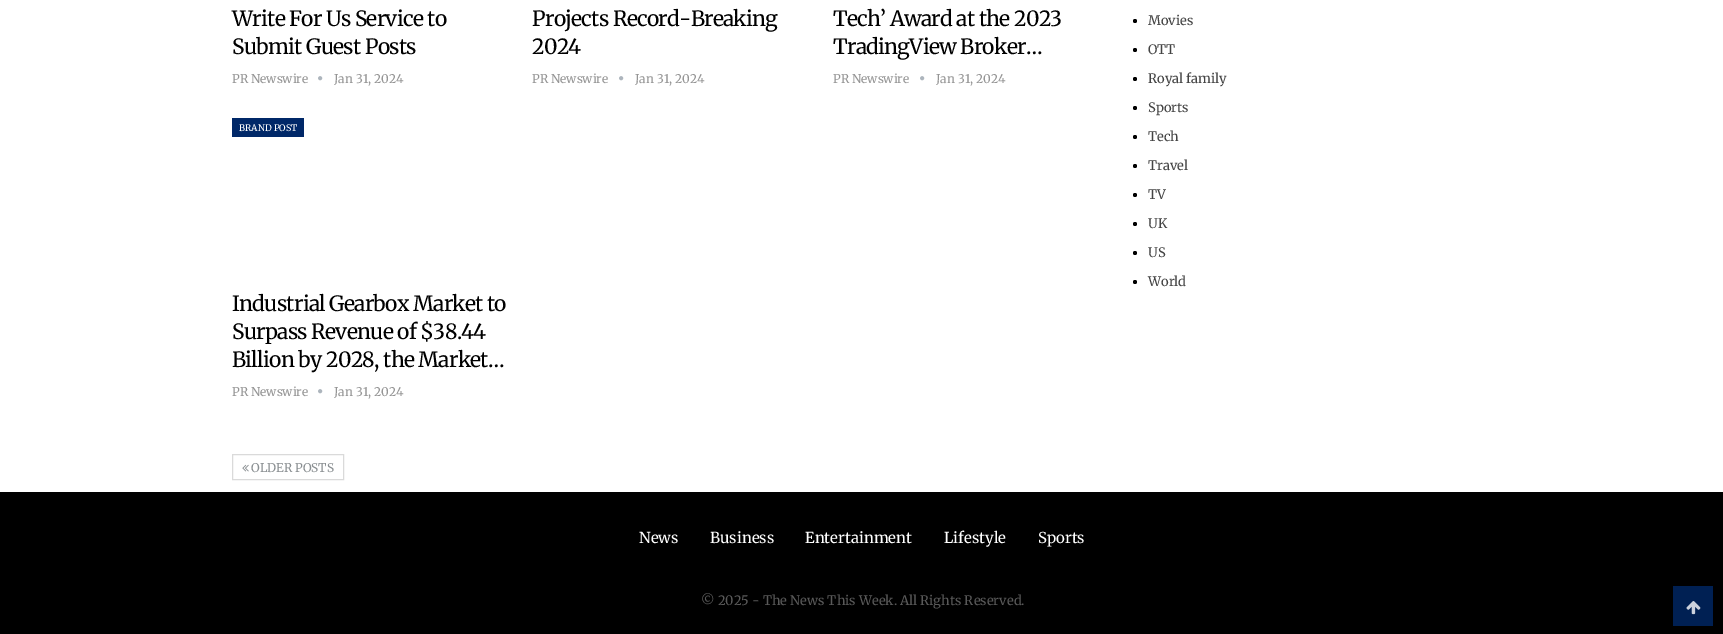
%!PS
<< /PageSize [1723 634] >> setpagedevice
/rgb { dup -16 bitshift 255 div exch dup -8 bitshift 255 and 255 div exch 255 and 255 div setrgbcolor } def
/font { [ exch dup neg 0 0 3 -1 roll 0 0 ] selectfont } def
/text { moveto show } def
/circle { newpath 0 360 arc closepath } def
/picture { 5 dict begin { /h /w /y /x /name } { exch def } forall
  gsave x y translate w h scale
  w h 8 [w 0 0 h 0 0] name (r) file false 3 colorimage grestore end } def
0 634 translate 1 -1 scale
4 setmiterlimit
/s1 { /Merriweather-Light 12 font 16#959595 rgb } def
/s2 { /Merriweather-Light 9 font 16#FFFFFF rgb } def
/s3 { /Merriweather-Light 12 font 16#8A8F92 rgb } def
/s4 { /Merriweather-Light 13 font 16#444444 rgb } def
/s5 { /Merriweather-Light 15 font 16#FFFFFF rgb } def
/s6 { /Merriweather-Light 13 font 16#595959 rgb } def
16#FFFFFF rgb
0 0 1723 634 rectfill
/Merriweather-Light 21 font
16#000000 rgb
232 26 moveto -0.7 0 (Write For Us Service to) ashow
232 54 moveto -0.7 0 (Submit Guest Posts) ashow
s1
(PR Newswire) 232 83 text
(pic1.raw) 318 76 5 5 picture
(Jan 31, 2024) 334 83 text
/Merriweather-Light 21 font
16#000000 rgb
532 26 moveto -0.7 0 (Projects Record-Breaking) ashow
532 54 moveto -0.7 0 (2024) ashow
s1
(PR Newswire) 532 83 text
(pic1.raw) 619 76 5 5 picture
(Jan 31, 2024) 635 83 text
/Merriweather-Light 21 font
16#000000 rgb
833 26 moveto -0.7 0 (Tech’ Award at the 2023) ashow
833 54 moveto -0.7 0 (TradingView Broker…) ashow
s1
(PR Newswire) 833 83 text
(pic1.raw) 920 76 5 5 picture
(Jan 31, 2024) 936 83 text
16#002868 rgb
232 118 72 19 rectfill
s2
(BRAND POST) 239 131 text
/Merriweather-Light 21 font
16#000000 rgb
232 311 moveto -0.7 0 (Industrial Gearbox Market to) ashow
232 339 moveto -0.7 0 (Surpass Revenue of $38.44) ashow
232 367 moveto -0.7 0 (Billion by 2028, the Market…) ashow
s1
(PR Newswire) 232 396 text
(pic1.raw) 318 389 5 5 picture
(Jan 31, 2024) 334 396 text
16#DADADA rgb
232.5 454.5 111 25 rectstroke
(pic2.raw) 242 464 7 8 picture
s3
(OLDER POSTS) 251 472 text
16#000000 rgb
1135 21 2 circle fill
s4
(Movies) 1148 25 text
16#000000 rgb
1135 50 2 circle fill
s4
(OTT) 1148 54 text
16#000000 rgb
1135 79 2 circle fill
s4
(Royal family) 1148 83 text
16#000000 rgb
1135 108 2 circle fill
s4
(Sports) 1148 112 text
16#000000 rgb
1135 137 2 circle fill
s4
(Tech) 1148 141 text
16#000000 rgb
1135 166 2 circle fill
s4
(Travel) 1148 170 text
16#000000 rgb
1135 195 2 circle fill
s4
(TV) 1148 199 text
16#000000 rgb
1135 224 2 circle fill
s4
(UK) 1148 228 text
16#000000 rgb
1135 253 2 circle fill
s4
(US) 1148 257 text
16#000000 rgb
1135 282 2 circle fill
s4
(World) 1148 286 text
16#000000 rgb
0 492 1723 142 rectfill
s5
(News) 639 543 text
(Business) 710 543 text
(Entertainment) 805 543 text
(Lifestyle) 944 543 text
(Sports) 1038 543 text
s6
(© 2025 - The News This Week. All Rights Reserved.) 701 605 text
16#002053 rgb
1673 586 40 40 rectfill
(pic3.raw) 1686 601 15 14 picture
showpage
